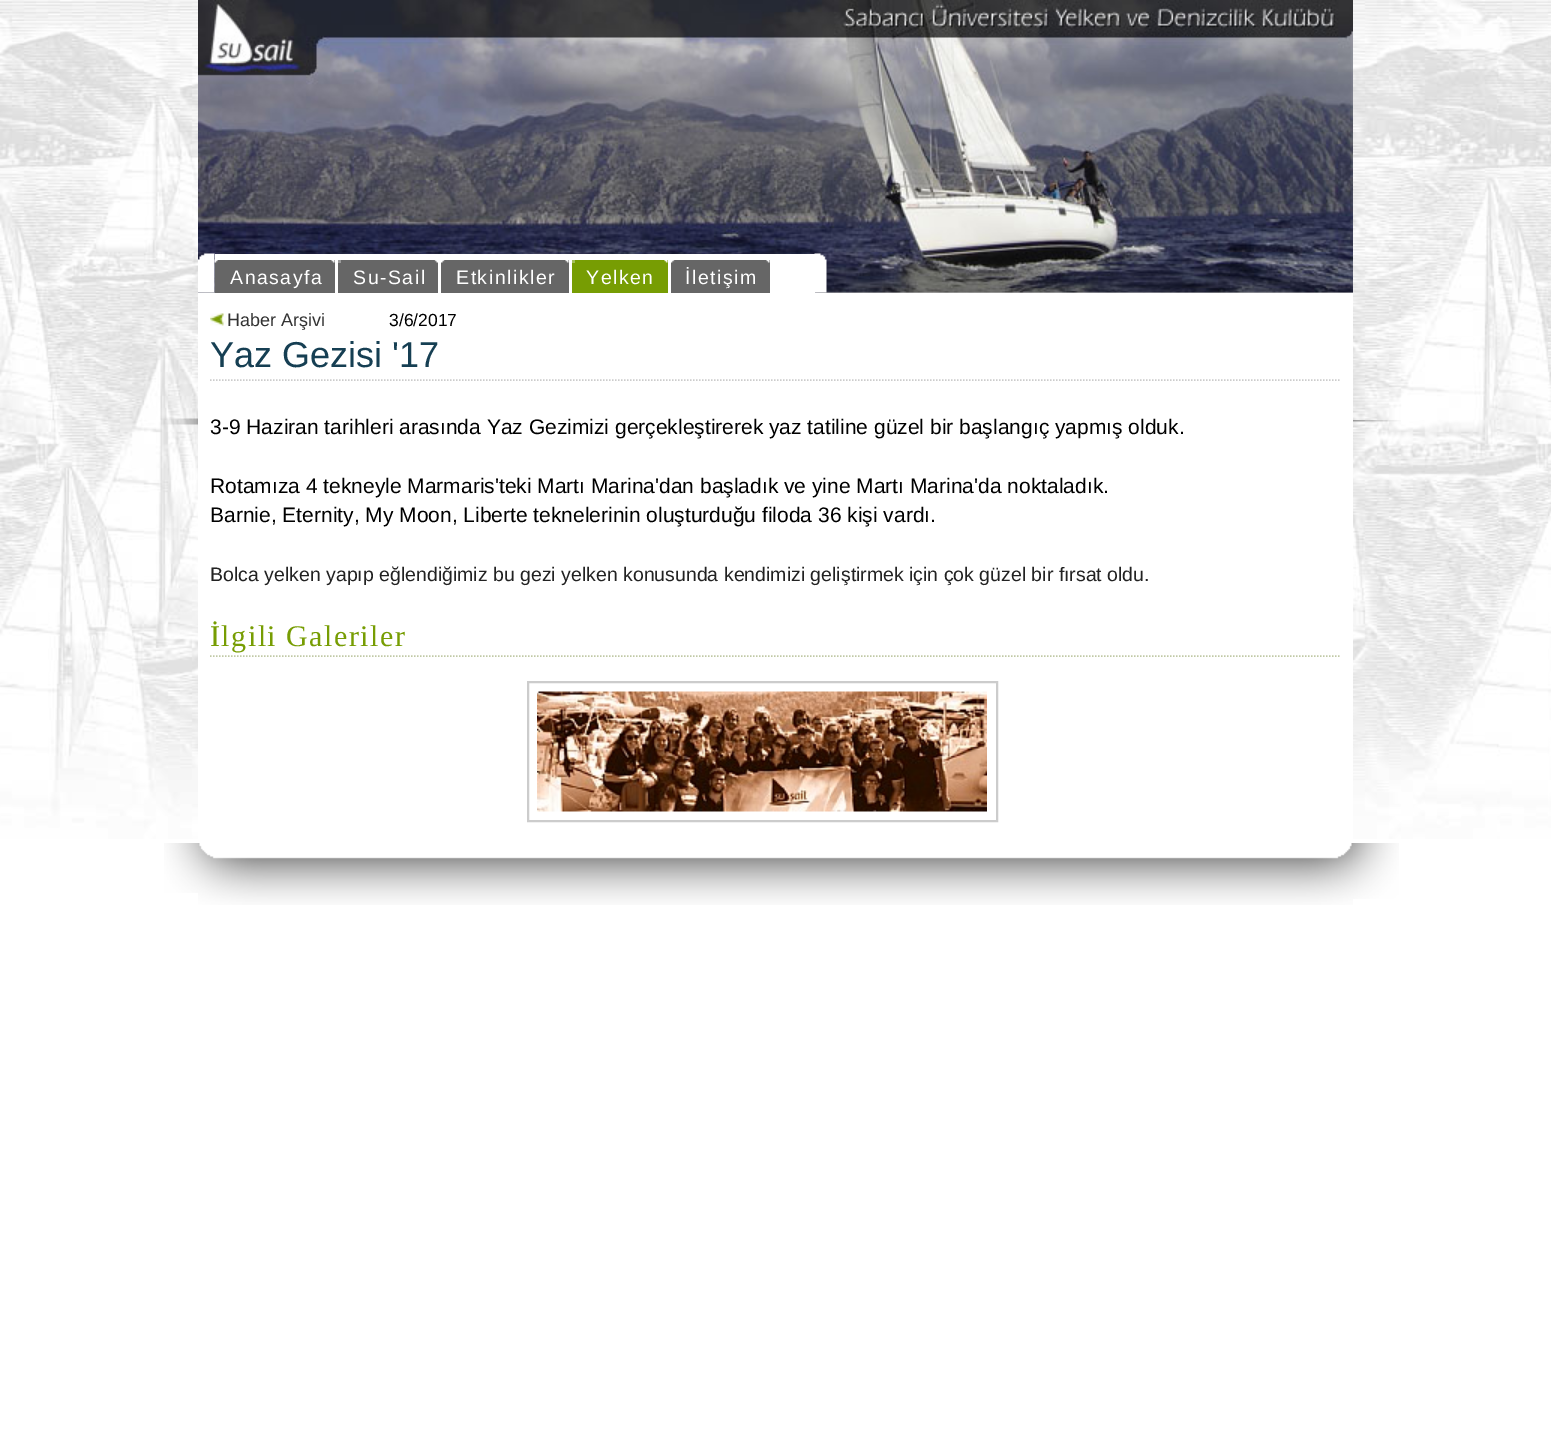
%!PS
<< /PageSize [1551 1443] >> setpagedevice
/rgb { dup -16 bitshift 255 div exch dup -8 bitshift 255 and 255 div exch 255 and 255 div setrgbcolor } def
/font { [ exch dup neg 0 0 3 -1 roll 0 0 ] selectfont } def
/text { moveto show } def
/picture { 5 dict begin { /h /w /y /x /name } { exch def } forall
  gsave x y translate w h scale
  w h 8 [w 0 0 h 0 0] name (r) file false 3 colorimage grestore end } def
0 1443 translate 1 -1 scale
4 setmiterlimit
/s1 { /LiberationSans-Regular 18 font 16#333333 rgb } def
/s2 { /LiberationSans-Regular 17.5 font 16#000000 rgb } def
/s3 { /LiberationSans-Regular 36 font 16#163F53 rgb } def
/s4 { /LiberationSans-Regular 21 font 16#000000 rgb } def
/s5 { /LiberationSans-Regular 19.5 font 16#222222 rgb } def
16#FFFFFF rgb
0 0 1551 1443 rectfill
(pic1.raw) 0 0 1551 839 picture
(pic2.raw) 161 418 37 7 picture
(pic3.raw) 198 292 1155 1 picture
(pic4.raw) 198 0 1155 293 picture
215 254 600 39 rectfill
16#666666 rgb
215 260 120 33 rectfill
(pic6.raw) 214 259 4 4 picture
(pic5.raw) 198 253 17 40 picture
(pic7.raw) 331 260 4 3 picture
/LiberationSans-Regular 19.5 font
16#FFFFFF rgb
230 284 moveto 1.5 0 (Anasayfa) ashow
16#666666 rgb
338 260 100 33 rectfill
16#9A9A9A rgb
338 260 3 3 rectfill
(pic8.raw) 434 260 4 3 picture
16#FFFFFF rgb
353 284 moveto 1.5 0 (Su-Sail) ashow
16#666666 rgb
441 260 128 33 rectfill
(pic9.raw) 441 260 4 3 picture
(pic10.raw) 565 260 4 3 picture
16#FFFFFF rgb
456 284 moveto 1.5 0 (Etkinlikler) ashow
16#779D03 rgb
572 260 96 33 rectfill
16#A5BE59 rgb
572 260 3 3 rectfill
(pic11.raw) 664 260 4 3 picture
16#FFFFFF rgb
586 284 moveto 1.5 0 (Yelken) ashow
16#666666 rgb
671 260 99 33 rectfill
(pic12.raw) 671 260 4 3 picture
(pic7.raw) 766 260 4 3 picture
16#FFFFFF rgb
685 284 moveto 1.5 0 (İletişim) ashow
(pic13.raw) 814 253 13 40 picture
198 293 1155 546 rectfill
(pic14.raw) 210 313 17 13 picture
s1
(Haber Arşivi) 227 326 text
s2
(3/6/2017) 389 326 text
16#CCCCCC rgb
1.5 setlinewidth
[1.5 1.5] 0 setdash
210 380 moveto 1341 380 lineto stroke
s3
(Yaz Gezisi '17) 210 367 text
s4
(3-9 Haziran tarihleri arasında Yaz Gezimizi gerçekleştirerek yaz tatiline güzel bir başlangıç yapmış olduk.) 210 434 text
(Rotamıza 4 tekneyle Marmaris'teki Martı Marina'dan başladık ve yine Martı Marina'da noktaladık.) 210 493 text
(Barnie, Eternity, My Moon, Liberte teknelerinin oluşturduğu filoda 36 kişi vardı.) 210 522 text
s5
(Bolca yelken yapıp eğlendiğimiz bu gezi yelken konusunda kendimizi geliştirmek için çok güzel bir fırsat oldu.) 210 581 text
16#C1C9A6 rgb
210 656 moveto 1341 656 lineto stroke
/LiberationSerif-Regular 30 font
16#779D03 rgb
210 646 moveto 1.5 0 (İlgili Galeriler) ashow
16#CCCCCC rgb
2 setlinewidth
[] 0 setdash
528 682 469 139 rectstroke
(pic15.raw) 537 691 450 121 picture
(pic16.raw) 1353 420 48 2 picture
(pic17.raw) 164 843 34 50 picture
(pic18.raw) 198 843 1155 62 picture
(pic19.raw) 1353 843 46 56 picture
showpage
